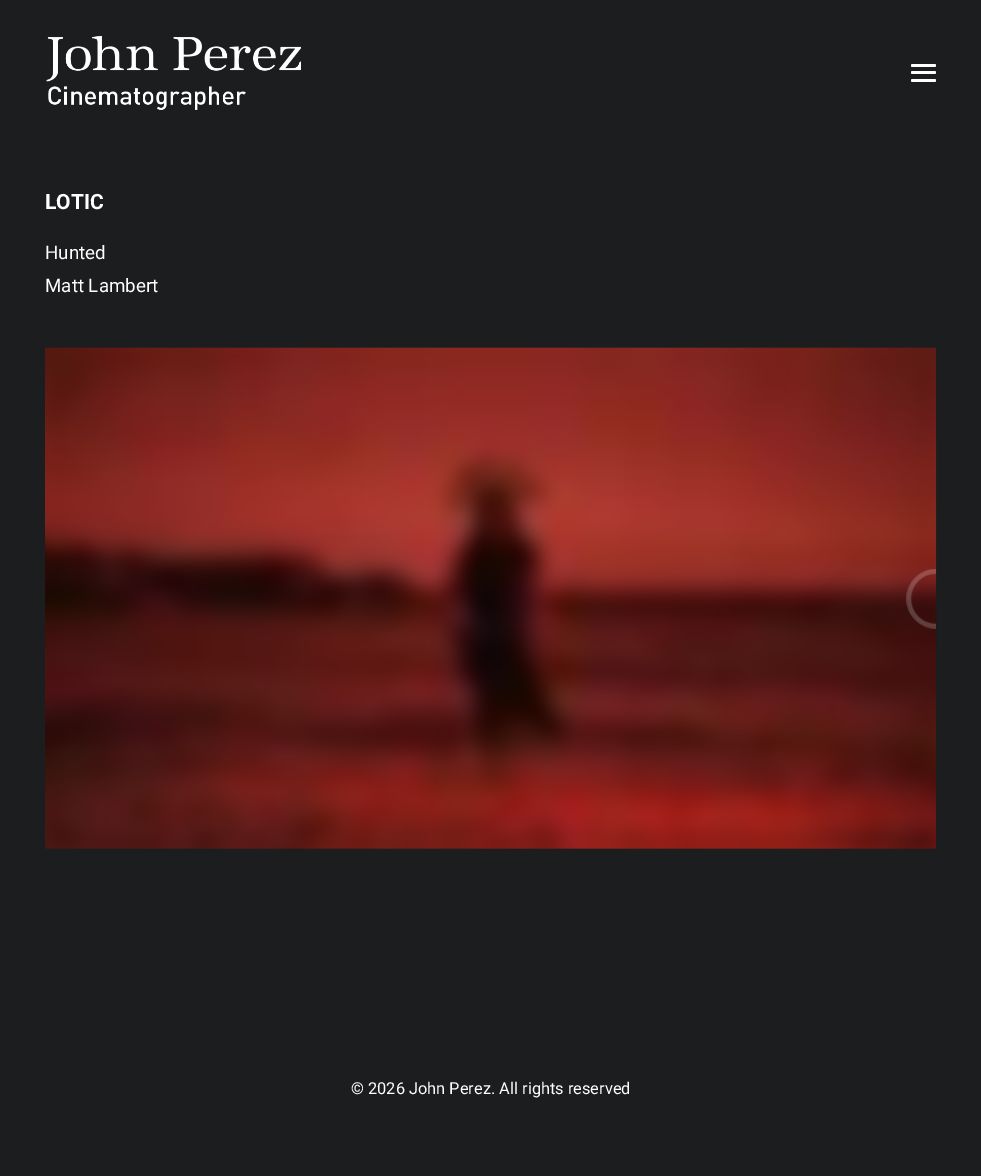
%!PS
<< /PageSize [981 1176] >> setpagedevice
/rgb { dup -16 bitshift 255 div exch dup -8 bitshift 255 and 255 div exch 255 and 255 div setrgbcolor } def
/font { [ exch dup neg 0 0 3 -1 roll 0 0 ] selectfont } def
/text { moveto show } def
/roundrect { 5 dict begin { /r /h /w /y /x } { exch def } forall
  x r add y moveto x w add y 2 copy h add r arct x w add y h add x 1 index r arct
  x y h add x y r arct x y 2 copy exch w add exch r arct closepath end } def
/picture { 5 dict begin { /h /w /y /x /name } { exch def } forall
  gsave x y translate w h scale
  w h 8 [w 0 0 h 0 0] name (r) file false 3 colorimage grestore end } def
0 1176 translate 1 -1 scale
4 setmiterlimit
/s1 { /Roboto-Bold 21 font 16#FFFFFF rgb } def
/s2 { /Roboto-Regular 18.75 font 16#FFFFFF rgb } def
/s3 { /Roboto-Regular 16.4 font 16#FFFFFF rgb } def
16#1B1D1F rgb
0 0 981 1176 rectfill
(pic1.raw) 46 36 255 74 picture
16#FFFFFF rgb
911 71 25 3 1.5 roundrect fill
911 64 25 3 1.5 roundrect fill
911 79 25 3 1.5 roundrect fill
s1
(LOTIC) 45 209 text
s2
(Hunted) 45 259 text
(Matt Lambert) 45 292 text
(pic2.raw) 45 347 892 502 picture
s3
(© 2026 John Perez. All rights reserved) 351 1094 text
showpage
